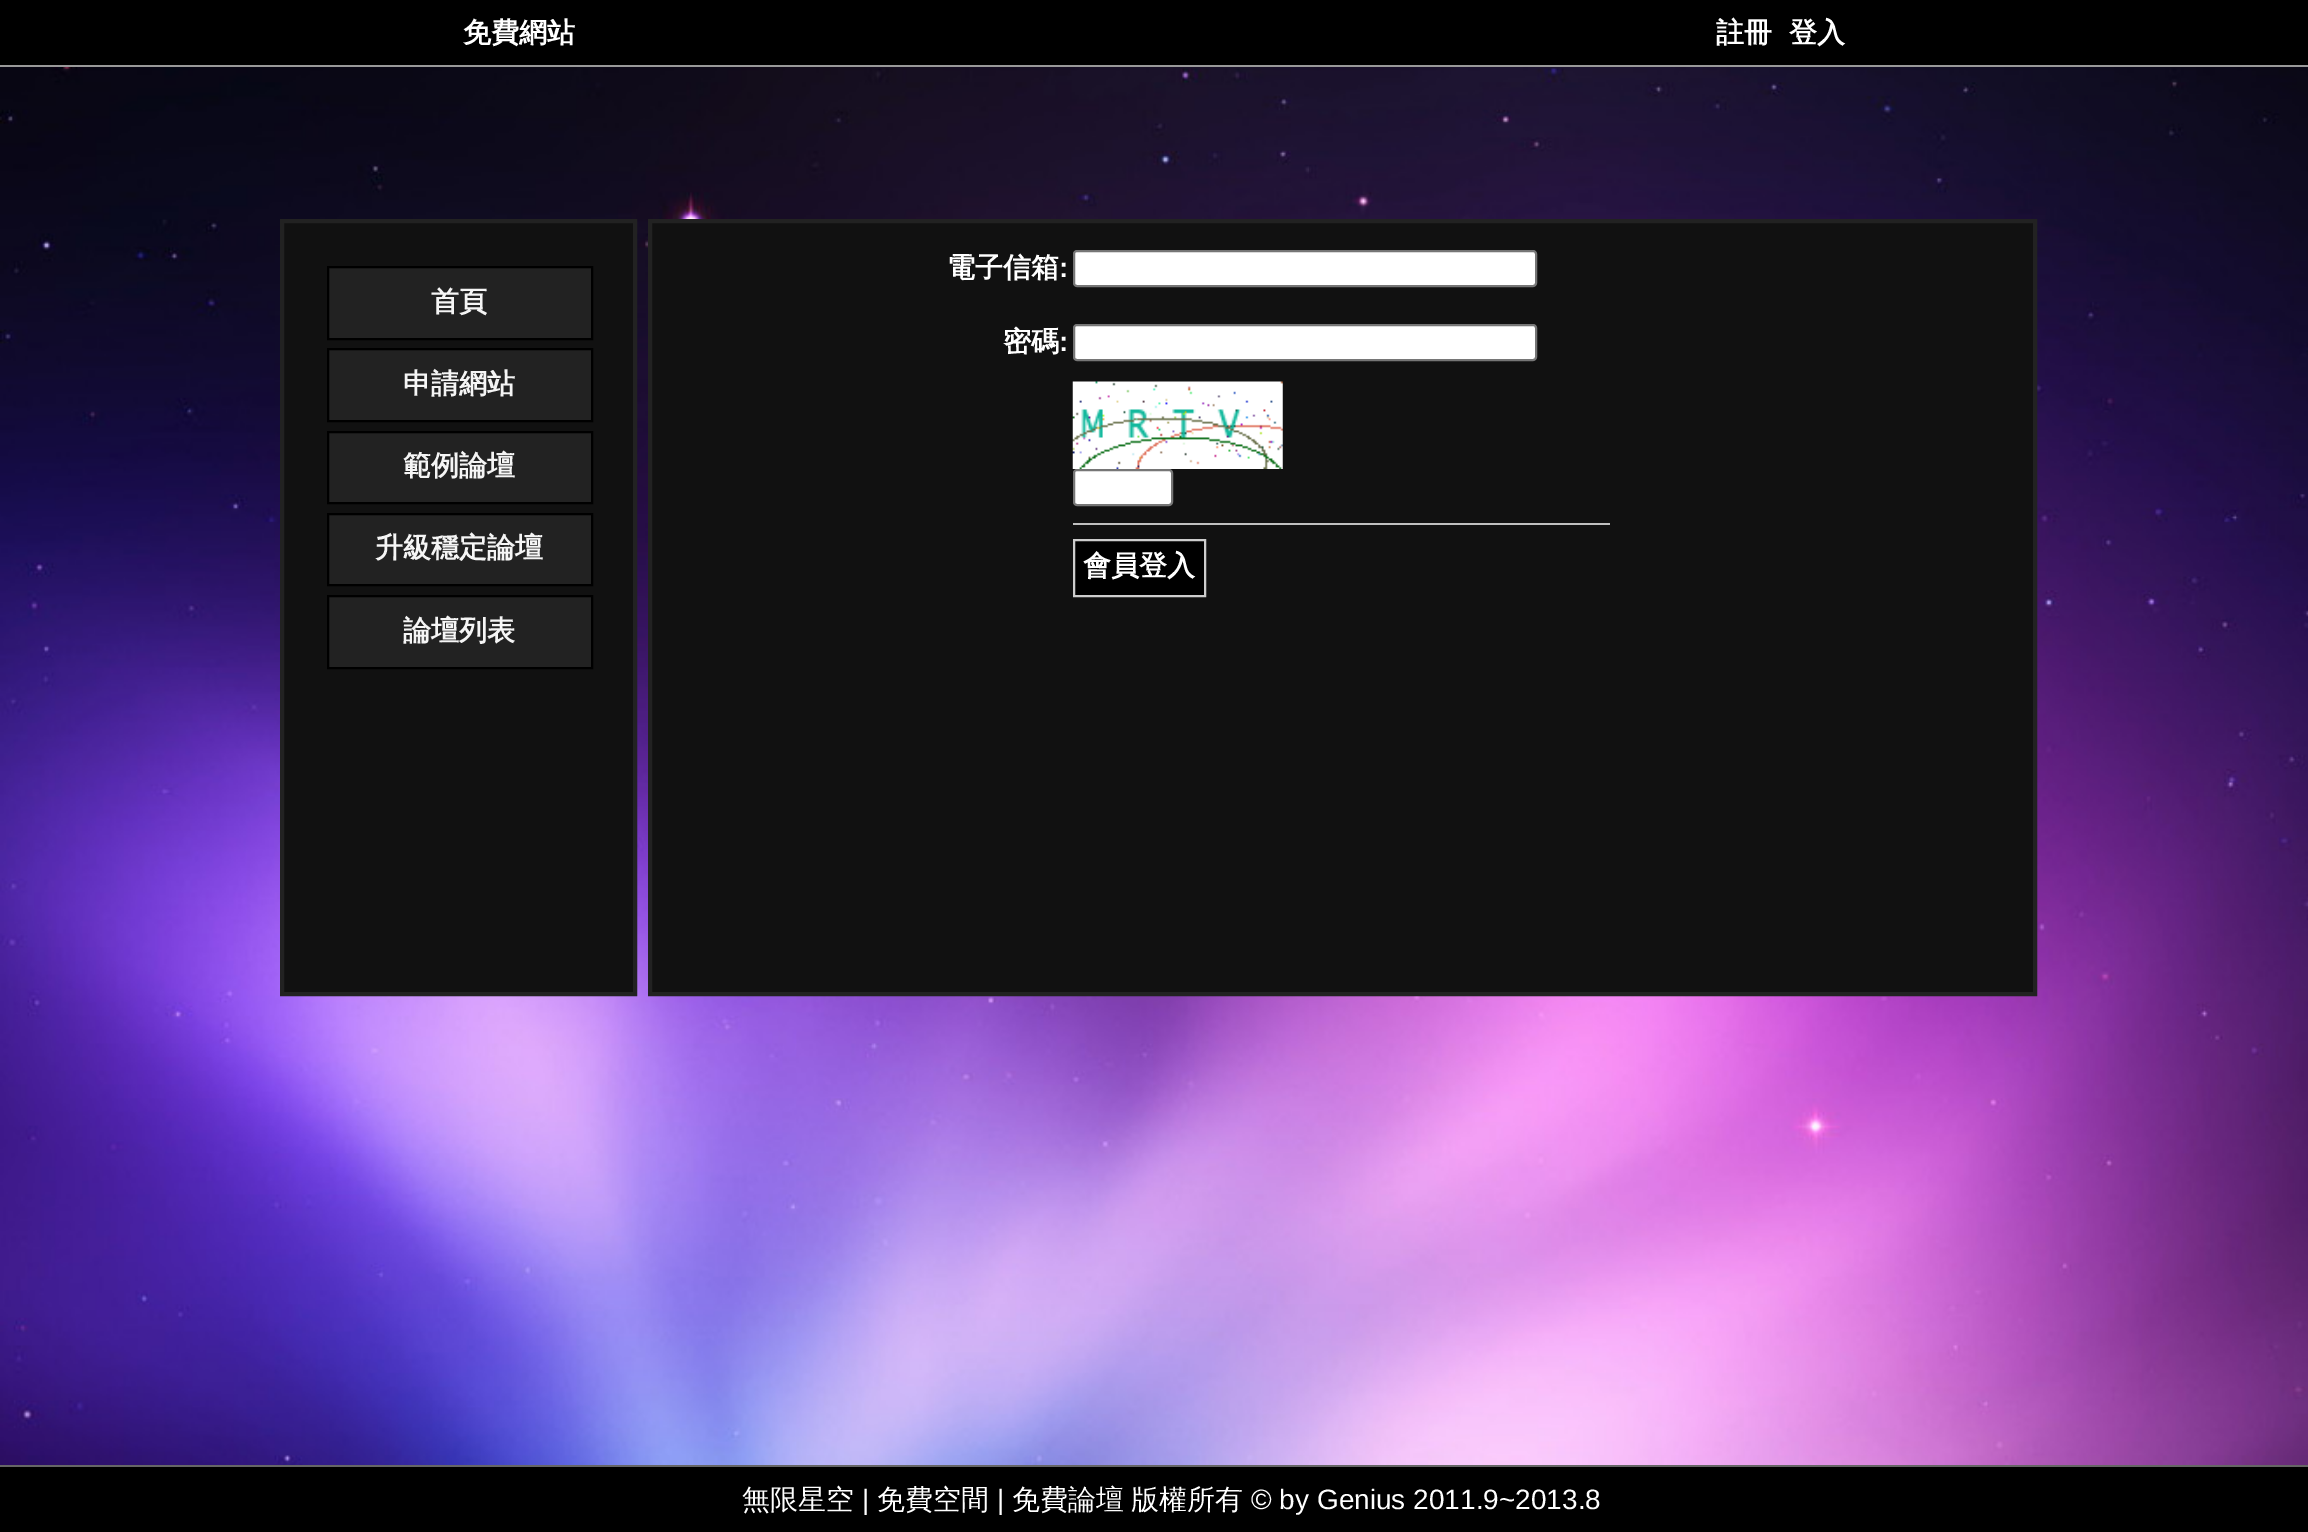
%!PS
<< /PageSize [2308 1532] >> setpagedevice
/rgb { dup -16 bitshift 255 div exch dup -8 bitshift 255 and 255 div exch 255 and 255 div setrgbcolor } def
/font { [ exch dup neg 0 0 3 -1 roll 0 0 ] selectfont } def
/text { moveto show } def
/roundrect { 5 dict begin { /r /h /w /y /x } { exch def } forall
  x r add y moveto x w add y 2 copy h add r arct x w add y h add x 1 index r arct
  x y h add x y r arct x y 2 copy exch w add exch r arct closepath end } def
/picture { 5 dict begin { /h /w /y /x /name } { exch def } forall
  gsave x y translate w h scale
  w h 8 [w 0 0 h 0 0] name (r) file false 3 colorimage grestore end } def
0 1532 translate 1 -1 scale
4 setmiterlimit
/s1 { /WenQuanYiZenHei-Bold 28 font 16#FFFFFF rgb } def
/s2 { /WenQuanYiZenHei-Bold 28 font 16#F5F5F5 rgb } def
/s3 { /LiberationSans-Bold 28 font 16#FFFFFF rgb } def
/s4 { /WenQuanYiZenHei-Medium 28 font 16#FFFFFF rgb } def
/s5 { /LiberationSans-Regular 28 font 16#FFFFFF rgb } def
16#FFFFFF rgb
0 0 2308 1532 rectfill
16#000000 rgb
0 0 2308 65 rectfill
16#999999 rgb
0 65 2308 2 rectfill
s1
(免費網站) 463 42 text
(註冊) 1716 42 text
(登入) 1789 42 text
(pic1.raw) 0 67 2308 1398 picture
16#111111 rgb
282 221 moveto 635 221 lineto 635 994 lineto 282 994 lineto closepath gsave fill grestore
16#222222 rgb
4 setlinewidth
stroke
328 267 moveto 592 267 lineto 592 339 lineto 328 339 lineto closepath gsave fill grestore
16#000000 rgb
2 setlinewidth
stroke
s2
(首頁) 431 311 text
16#222222 rgb
328 349 moveto 592 349 lineto 592 421 lineto 328 421 lineto closepath gsave fill grestore
16#000000 rgb
stroke
s2
(申請網站) 403 393 text
16#222222 rgb
328 432 moveto 592 432 lineto 592 503 lineto 328 503 lineto closepath gsave fill grestore
16#000000 rgb
stroke
s2
(範例論壇) 403 475 text
16#222222 rgb
328 514 moveto 592 514 lineto 592 585 lineto 328 585 lineto closepath gsave fill grestore
16#000000 rgb
stroke
s2
(升級穩定論壇) 375 557 text
16#222222 rgb
328 596 moveto 592 596 lineto 592 668 lineto 328 668 lineto closepath gsave fill grestore
16#000000 rgb
stroke
s2
(論壇列表) 403 640 text
16#111111 rgb
650 221 moveto 2035 221 lineto 2035 994 lineto 650 994 lineto closepath gsave fill grestore
16#222222 rgb
4 setlinewidth
stroke
s1
(電子信箱) 947 277 text
s3
(:) 1059 277 text
1074 251 462 35 3 roundrect gsave fill grestore
16#767676 rgb
2 setlinewidth
stroke
s1
(密碼) 1003 351 text
s3
(:) 1059 351 text
1074 325 462 35 3 roundrect gsave fill grestore
16#767676 rgb
stroke
(pic2.raw) 1072 381 211 88 picture
16#FFFFFF rgb
1074 470 98 35 3 roundrect gsave fill grestore
16#767676 rgb
stroke
16#C0C0C0 rgb
1073 523 537 2 rectfill
16#000000 rgb
1074 540 moveto 1205 540 lineto 1205 596 lineto 1074 596 lineto closepath gsave fill grestore
16#CDCDCD rgb
stroke
s1
(會員登入) 1083 575 text
16#000000 rgb
0 1467 2308 65 rectfill
16#666666 rgb
0 1465 2308 2 rectfill
s4
(無限星空) 742 1509 text
s5
(|) 862 1509 text
s4
(免費空間) 877 1509 text
s5
(|) 997 1509 text
s4
(免費論壇) 1012 1509 text
(版權所有) 1131 1509 text
s5
(© by Genius 2011.9~2013.8) 1251 1509 text
showpage
